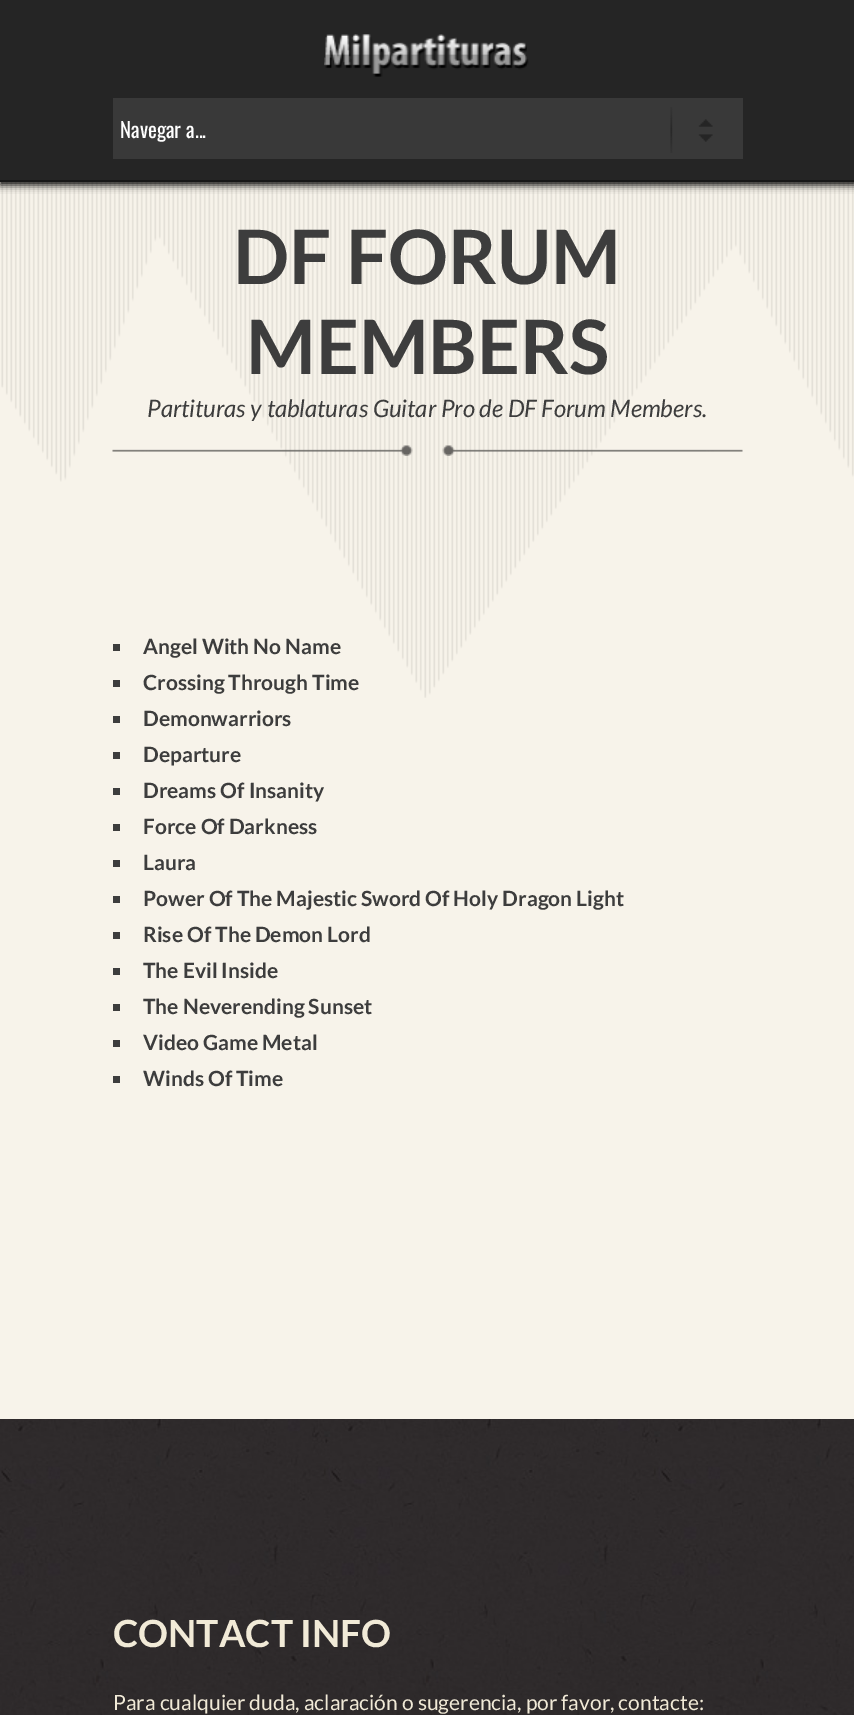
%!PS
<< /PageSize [854 1715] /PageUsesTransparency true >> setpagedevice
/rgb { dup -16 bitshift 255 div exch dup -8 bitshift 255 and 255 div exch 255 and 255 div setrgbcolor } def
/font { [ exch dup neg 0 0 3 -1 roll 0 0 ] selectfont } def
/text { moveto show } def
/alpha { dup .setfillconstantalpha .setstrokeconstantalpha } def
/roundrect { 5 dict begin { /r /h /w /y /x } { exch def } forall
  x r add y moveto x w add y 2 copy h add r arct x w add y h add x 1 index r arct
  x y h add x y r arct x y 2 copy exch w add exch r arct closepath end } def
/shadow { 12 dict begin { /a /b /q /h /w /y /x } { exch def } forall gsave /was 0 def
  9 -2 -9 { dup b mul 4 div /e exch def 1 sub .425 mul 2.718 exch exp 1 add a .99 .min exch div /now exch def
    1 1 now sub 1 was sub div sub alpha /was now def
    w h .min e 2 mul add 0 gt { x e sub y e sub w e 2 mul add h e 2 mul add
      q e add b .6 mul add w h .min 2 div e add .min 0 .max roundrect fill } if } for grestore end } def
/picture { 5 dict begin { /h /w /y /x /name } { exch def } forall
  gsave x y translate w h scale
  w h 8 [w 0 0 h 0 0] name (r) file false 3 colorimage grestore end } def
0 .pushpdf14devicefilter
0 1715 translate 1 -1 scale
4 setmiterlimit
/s1 { /Oswald-Regular 21 font 16#FFFFFF rgb } def
/s2 { /Lato-Bold 75 font 16#3D3D3D rgb } def
/s3 { /Lato-Italic 24 font 16#3D3D3D rgb } def
/s4 { /Lato-Bold 21 font 16#3D3D3D rgb } def
/s5 { /Lato-Bold 37.5 font 16#F1EAD7 rgb } def
/s6 { /Lato-Regular 21 font 16#F1EAD7 rgb } def
16#F7F3EA rgb
0 0 854 1715 rectfill
(pic3.raw) 1 182 853 516 picture
16#000000 rgb
0 3 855 182 0 4 1 shadow
16#252525 rgb
0 0 854 180 rectfill
16#171717 rgb
0 180 854 2 rectfill
(pic1.raw) 324 34 205 43 picture
16#393939 rgb
113 98 630 61 rectfill
(pic2.raw) 670 107 43 46 picture
s1
(Navegar a...) 120 138 text
(pic4.raw) 112 445 631 11 picture
s2
(DF FORUM) 233 284 text
(MEMBERS) 246 374 text
s3
(Partituras y tablaturas Guitar Pro de DF Forum Members.) 147 417 text
113 644 7 7 rectfill
s4
(Angel With No Name) 143 654 text
113 680 7 7 rectfill
(Crossing Through Time) 143 690 text
113 716 7 7 rectfill
(Demonwarriors) 143 726 text
113 752 7 7 rectfill
(Departure) 143 762 text
113 788 7 7 rectfill
(Dreams Of Insanity) 143 798 text
113 824 7 7 rectfill
(Force Of Darkness) 143 834 text
113 860 7 7 rectfill
(Laura) 143 870 text
113 896 7 7 rectfill
(Power Of The Majestic Sword Of Holy Dragon Light) 143 906 text
113 932 7 7 rectfill
(Rise Of The Demon Lord) 143 942 text
113 968 7 7 rectfill
(The Evil Inside) 143 978 text
113 1004 7 7 rectfill
(The Neverending Sunset) 143 1014 text
113 1040 7 7 rectfill
(Video Game Metal) 143 1050 text
113 1076 7 7 rectfill
(Winds Of Time) 143 1086 text
(pic5.raw) 0 1419 854 296 picture
s5
(CONTACT INFO) 113 1647 text
s6
(Para cualquier duda, aclaración o sugerencia, por favor, contacte:) 113 1710 text
.poppdf14devicefilter showpage
